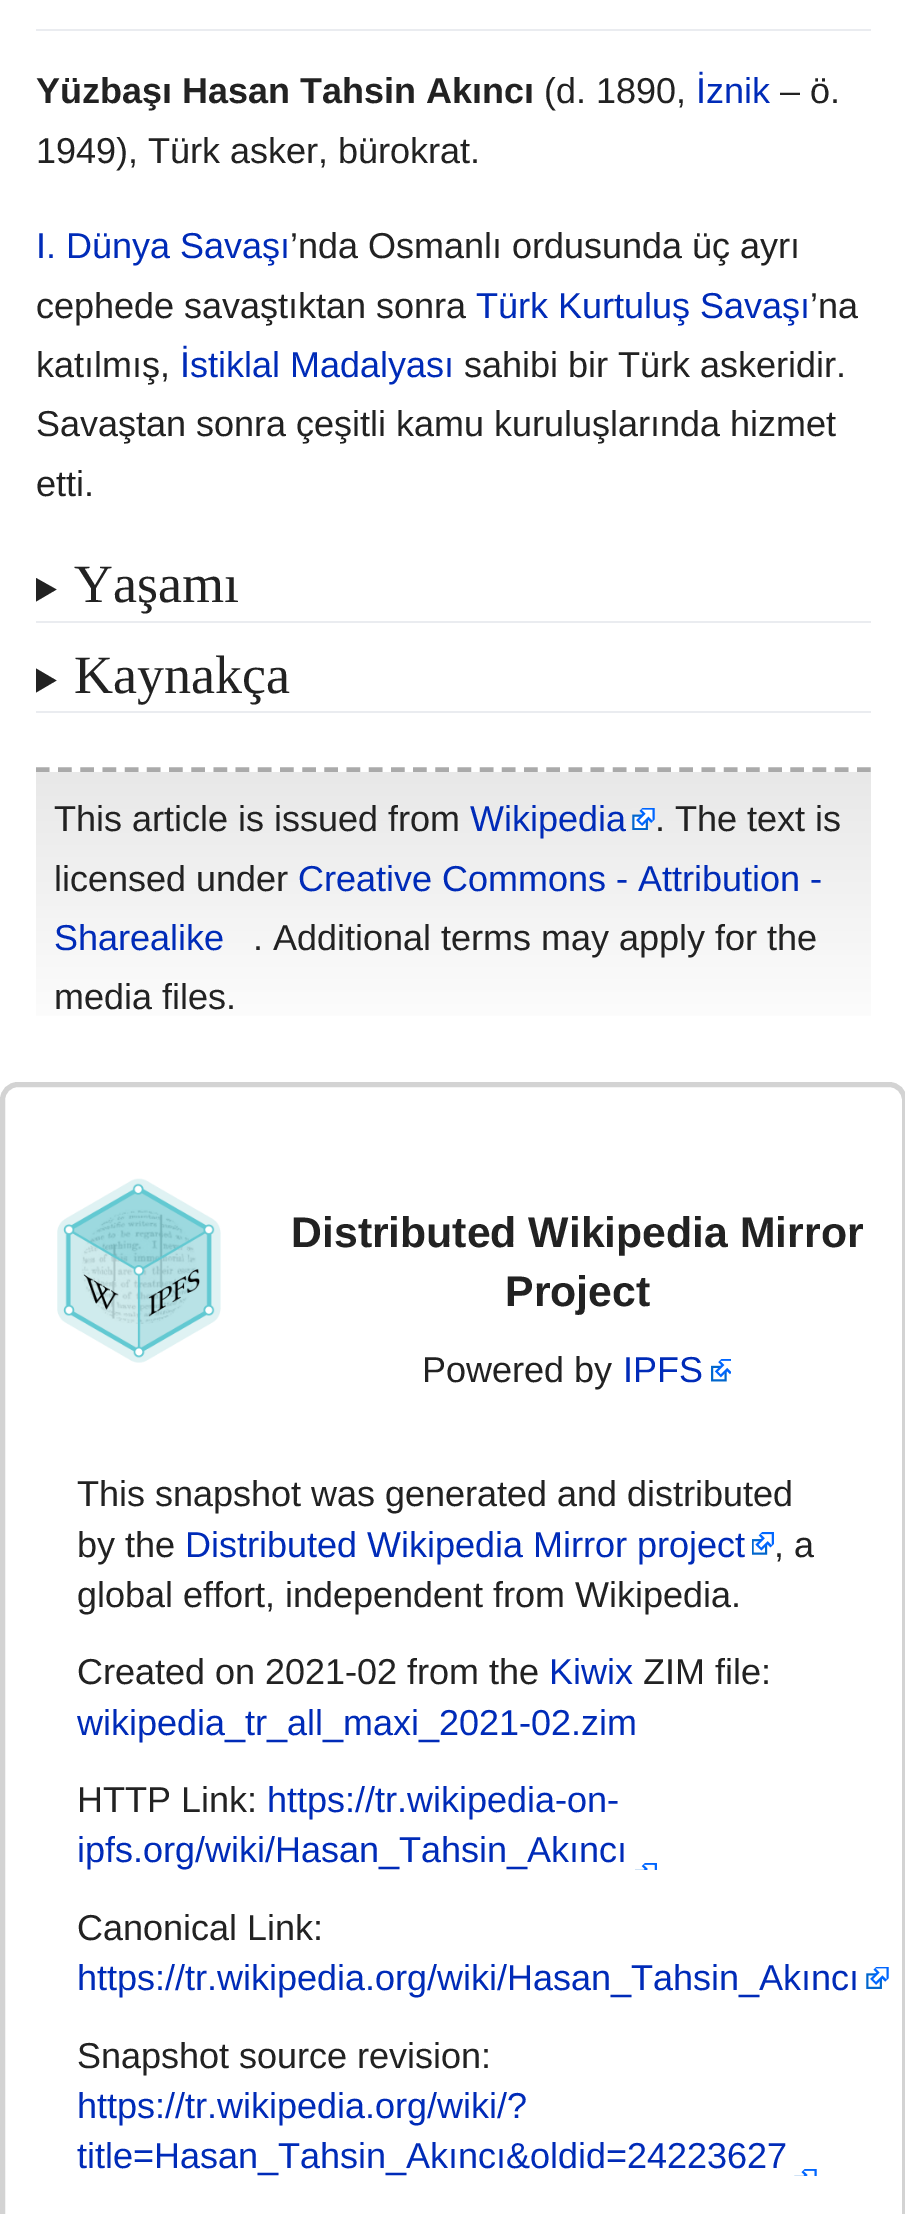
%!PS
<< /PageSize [905 2214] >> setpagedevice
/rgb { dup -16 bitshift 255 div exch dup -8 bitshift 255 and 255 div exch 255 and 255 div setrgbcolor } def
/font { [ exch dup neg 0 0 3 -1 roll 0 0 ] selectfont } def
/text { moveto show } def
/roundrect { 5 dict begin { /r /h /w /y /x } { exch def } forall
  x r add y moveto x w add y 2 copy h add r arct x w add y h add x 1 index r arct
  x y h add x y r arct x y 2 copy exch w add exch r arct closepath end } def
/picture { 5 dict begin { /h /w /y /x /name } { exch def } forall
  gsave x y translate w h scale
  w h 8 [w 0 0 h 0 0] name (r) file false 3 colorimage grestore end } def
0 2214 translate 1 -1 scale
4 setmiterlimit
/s1 { /LiberationSans-Bold 36 font 16#222222 rgb } def
/s2 { /LiberationSans-Regular 36 font 16#222222 rgb } def
/s3 { /LiberationSans-Regular 36 font 16#002BB8 rgb } def
/s4 { /LiberationSerif-Regular 54 font 16#222222 rgb } def
/s5 { /LiberationSans-Bold 42.75 font 16#222222 rgb } def
16#FFFFFF rgb
0 0 905 2214 rectfill
16#EAECF0 rgb
36 29 835 2 rectfill
s1
(Yüzbaşı Hasan Tahsin Akıncı) 36 103 text
s2
(\(d. 1890,) 544 103 text
s3
(İznik) 696 103 text
s2
(– ö.) 780 103 text
(1949\), Türk asker, bürokrat.) 36 163 text
s3
(I. Dünya Savaşı) 36 258 text
s2
(’nda Osmanlı ordusunda üç ayrı) 290 258 text
(cephede savaştıktan sonra) 36 318 text
s3
(Türk Kurtuluş Savaşı) 476 318 text
s2
(’na) 810 318 text
(katılmış,) 36 377 text
s3
(İstiklal Madalyası) 180 377 text
s2
(sahibi bir Türk askeridir.) 464 377 text
(Savaştan sonra çeşitli kamu kuruluşlarında hizmet) 36 436 text
(etti.) 36 496 text
16#EAECF0 rgb
36 621 835 2 rectfill
16#222222 rgb
36 578 moveto 56.5 589.5 lineto 36 601.5 lineto closepath fill
s4
(Yaşamı) 74 602 text
16#EAECF0 rgb
36 711 835 2 rectfill
16#222222 rgb
36 668.5 moveto 56.5 680.5 lineto 36 692.5 lineto closepath fill
(Kaynakça) 74 693 text
gsave 36 772 moveto 871 772 lineto 871 1016 lineto 36 1016 lineto closepath clip newpath
<< /ShadingType 2 /ColorSpace /DeviceRGB /Coords [453 772 453 1046] /Extend [true true] /Function << /FunctionType 2 /Domain [0 1] /C0 [0.91 0.91 0.91] /C1 [1 1 1] /N 1 >> >> shfill grestore
16#AAAAAA rgb
4.5 setlinewidth
[13.5 8.69] 0 setdash
36 769.5 moveto 871 769.5 lineto stroke
s2
(This article is issued from) 54 831 text
s3
(Wikipedia) 470 831 text
(pic1.raw) 632 808 23 22 picture
s2
(. The text is) 655 831 text
(licensed under) 54 891 text
s3
(Creative Commons - Attribution -) 298 891 text
(Sharealike) 54 950 text
s2
(. Additional terms may apply for the) 253 950 text
(media files.) 54 1009 text
16#D3D3D3 rgb
5 setlinewidth
[] 0 setdash
2.5 1084.5 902 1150 15.5 roundrect stroke
(pic2.raw) 57 1178 164 185 picture
s5
(Distributed Wikipedia Mirror) 291 1247 text
(Project) 505 1306 text
s2
(Powered by) 422 1382 text
s3
(IPFS) 623 1382 text
(pic3.raw) 711 1359 20 23 picture
s2
(This snapshot was generated and distributed) 77 1506 text
(by the) 77 1557 text
s3
(Distributed Wikipedia Mirror project) 185 1557 text
(pic4.raw) 752 1532 22 23 picture
s2
(, a) 774 1557 text
(global effort, independent from Wikipedia.) 77 1607 text
(Created on 2021-02 from the) 77 1684 text
s3
(Kiwix) 549 1684 text
s2
(ZIM file:) 643 1684 text
s3
(wikipedia_tr_all_maxi_2021-02.zim) 77 1735 text
s2
(HTTP Link:) 77 1812 text
s3
(https://tr.wikipedia-on-) 267 1812 text
(ipfs.org/wiki/Hasan_Tahsin_Akıncı) 77 1862 text
(pic5.raw) 635 1863 22 7 picture
s2
(Canonical Link:) 77 1940 text
s3
(https://tr.wikipedia.org/wiki/Hasan_Tahsin_Akıncı) 77 1990 text
(pic6.raw) 866 1967 23 22 picture
s2
(Snapshot source revision:) 77 2068 text
s3
(https://tr.wikipedia.org/wiki/?) 77 2118 text
(title=Hasan_Tahsin_Akıncı&oldid=24223627) 77 2168 text
(pic7.raw) 794 2169 23 7 picture
showpage
